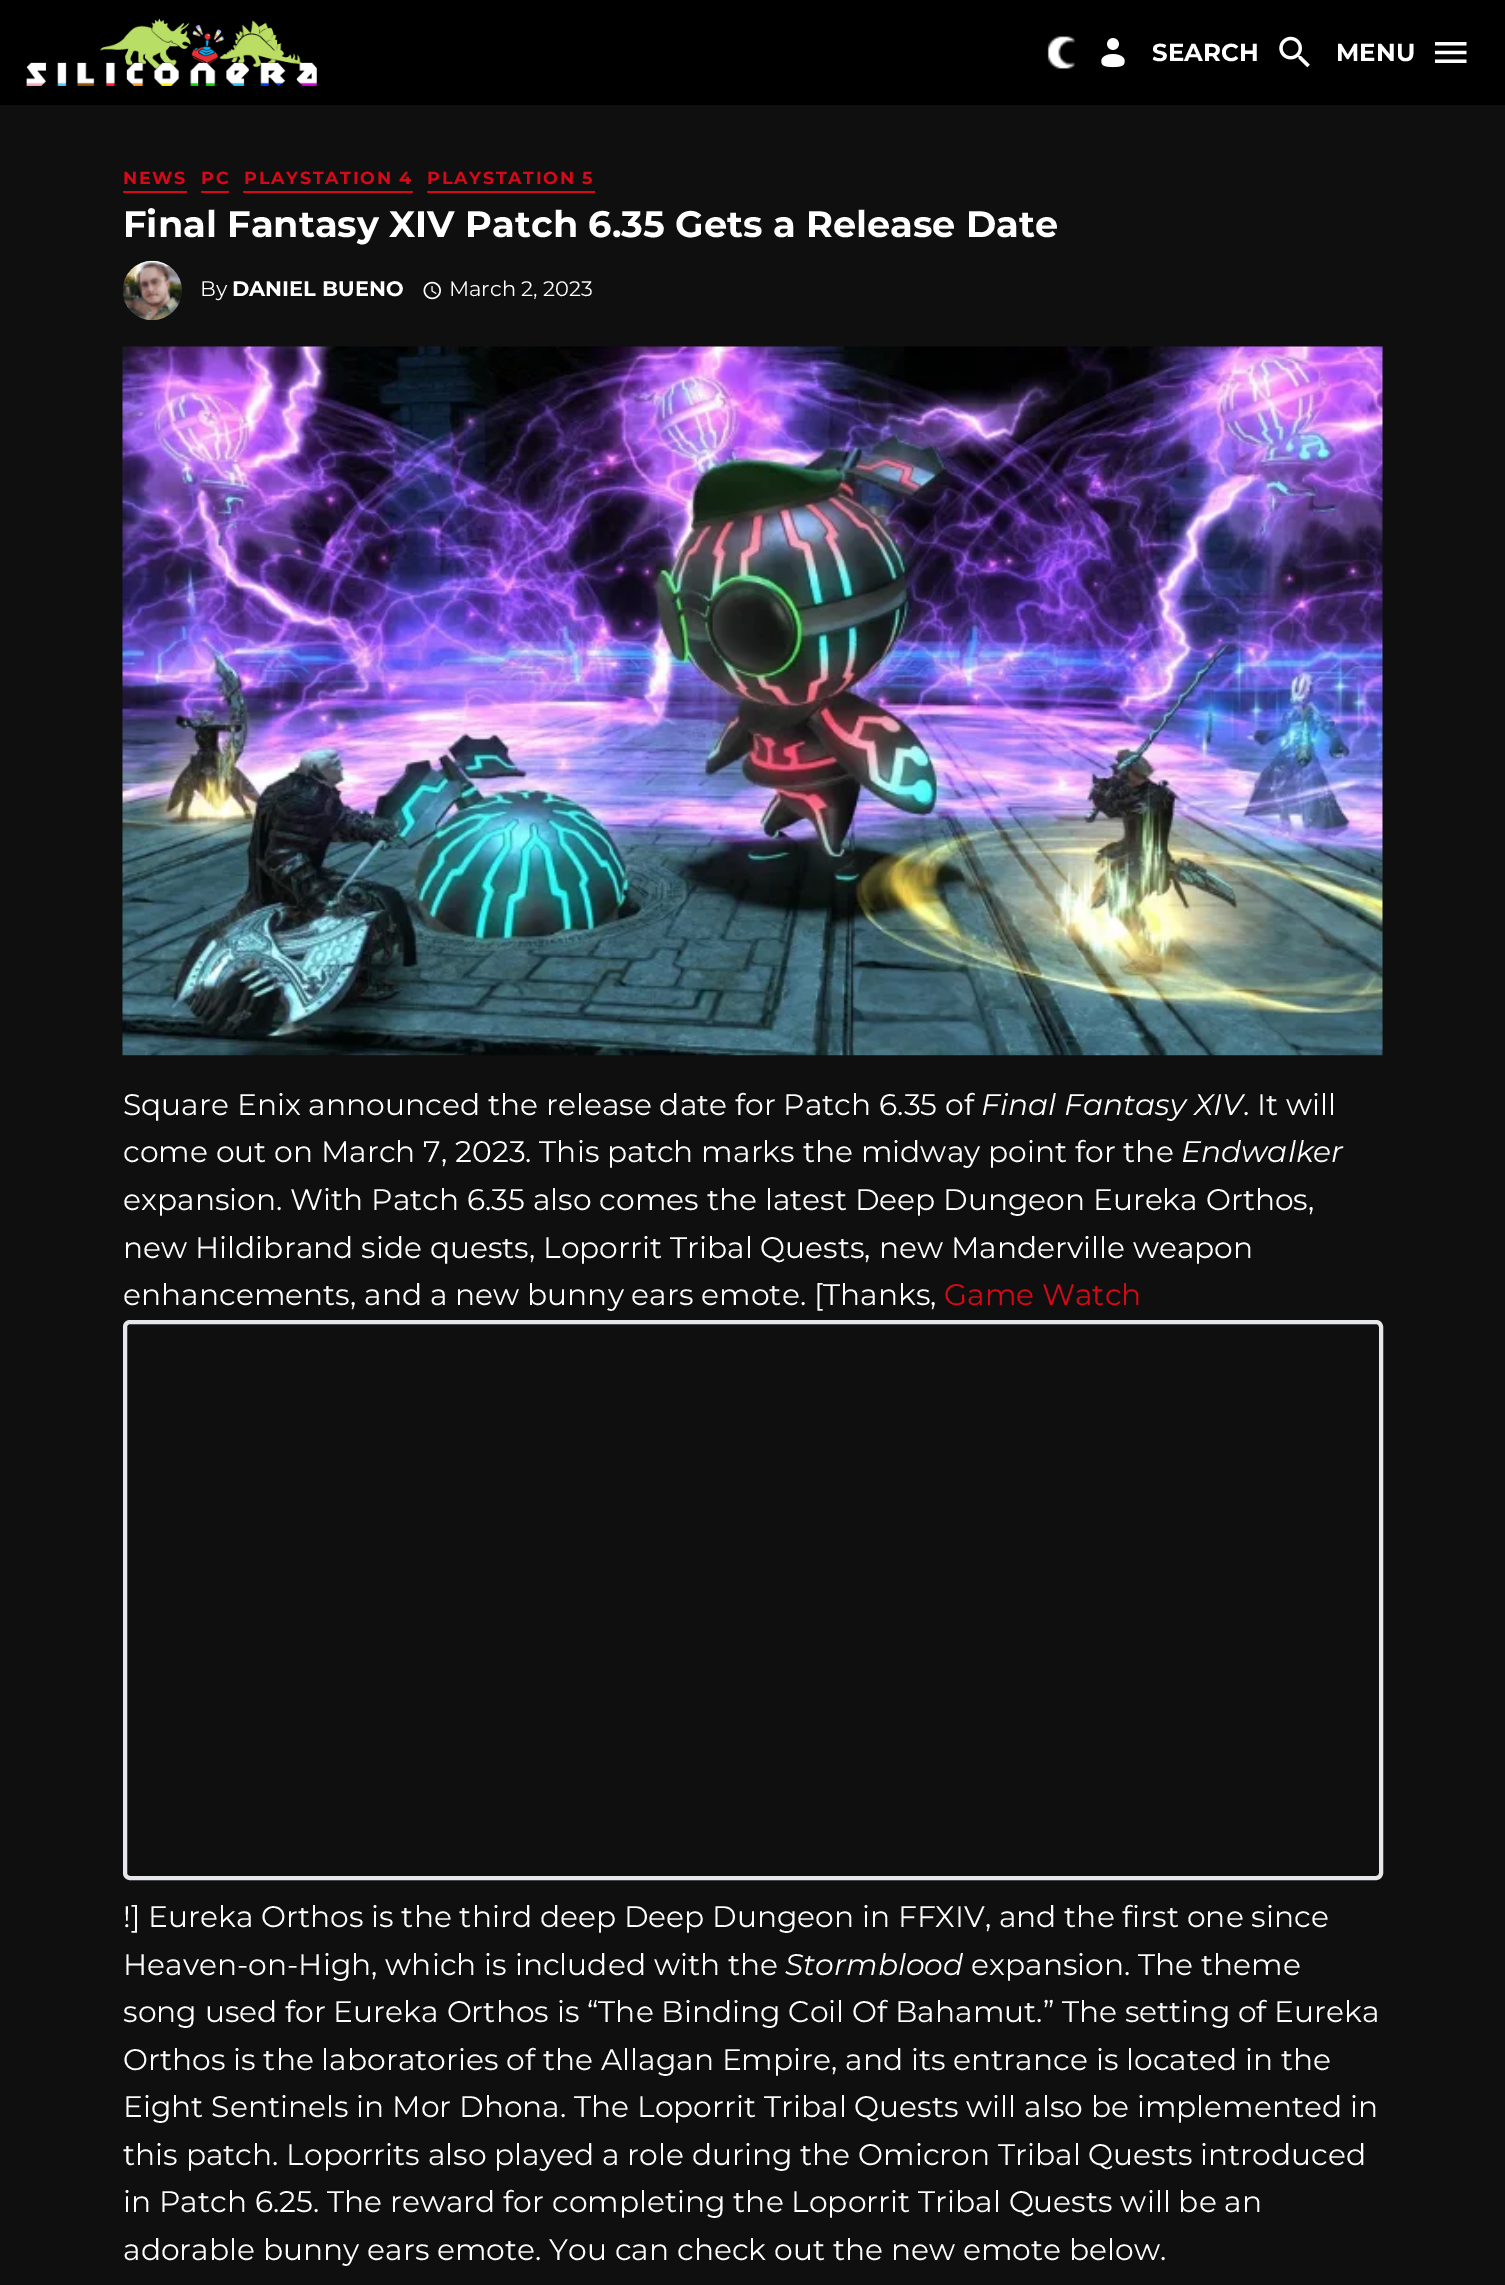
%!PS
<< /PageSize [1505 2285] >> setpagedevice
/rgb { dup -16 bitshift 255 div exch dup -8 bitshift 255 and 255 div exch 255 and 255 div setrgbcolor } def
/font { [ exch dup neg 0 0 3 -1 roll 0 0 ] selectfont } def
/text { moveto show } def
/roundrect { 5 dict begin { /r /h /w /y /x } { exch def } forall
  x r add y moveto x w add y 2 copy h add r arct x w add y h add x 1 index r arct
  x y h add x y r arct x y 2 copy exch w add exch r arct closepath end } def
/picture { 5 dict begin { /h /w /y /x /name } { exch def } forall
  gsave x y translate w h scale
  w h 8 [w 0 0 h 0 0] name (r) file false 3 colorimage grestore end } def
0 2285 translate 1 -1 scale
4 setmiterlimit
/s1 { /Montserrat-Bold 24.5 font 16#FFFFFF rgb } def
/s2 { /Montserrat-Bold 36.75 font 16#FFFFFF rgb } def
/s3 { /Montserrat-Regular 21 font 16#FFFFFF rgb } def
/s4 { /Montserrat-Bold 21 font 16#FFFFFF rgb } def
/s5 { /Montserrat-Regular 29.75 font 16#FFFFFF rgb } def
/s6 { /Montserrat-Italic 29.75 font 16#FFFFFF rgb } def
/s7 { /Montserrat-Regular 29.75 font 16#D50917 rgb } def
16#0F0F0F rgb
0 0 1505 2285 rectfill
16#000000 rgb
0 0 1505 105 rectfill
(pic1.raw) 26 18 291 68 picture
(pic2.raw) 1047 36 28 33 picture
(pic3.raw) 1101 38 24 30 picture
s1
(SEARCH) 1152 61 text
(pic4.raw) 1279 36 31 32 picture
(MENU) 1336 61 text
(pic5.raw) 1435 42 32 21 picture
16#D50917 rgb
123 191 64 2 rectfill
/Montserrat-Bold 17.5 font
123 184 moveto 1.75 0 (NEWS) ashow
201 191 28 2 rectfill
201 184 moveto 1.75 0 (PC) ashow
243 191 170 2 rectfill
244 184 moveto 1.75 0 (PLAYSTATION 4) ashow
427 191 168 2 rectfill
427 184 moveto 1.75 0 (PLAYSTATION 5) ashow
s2
(Final Fantasy XIV Patch 6.35 Gets a Release Date) 123 237 text
(pic6.raw) 122 260 60 61 picture
s3
(By) 200 296 text
s4
(DANIEL BUENO) 232 296 text
(pic7.raw) 423 281 18 19 picture
s3
(March 2, 2023) 449 296 text
(pic8.raw) 122 346 1261 710 picture
s5
(Square Enix announced the release date for Patch 6.35 of) 123 1115 text
s6
(Final Fantasy XIV) 981 1115 text
s5
(. It will) 1243 1115 text
(come out on March 7, 2023. This patch marks the midway point for the) 123 1162 text
s6
(Endwalker) 1181 1162 text
s5
(expansion. With Patch 6.35 also comes the latest Deep Dungeon Eureka Orthos,) 123 1210 text
(new Hildibrand side quests, Loporrit Tribal Quests, new Manderville weapon) 123 1258 text
(enhancements, and a new bunny ears emote. [Thanks,) 123 1305 text
s7
(Game Watch) 944 1305 text
16#E5E7EB rgb
4 setlinewidth
125 1322 1256 556 5 roundrect stroke
s5
(!] Eureka Orthos is the third deep Deep Dungeon in FFXIV, and the first one since) 123 1927 text
(Heaven-on-High, which is included with the) 123 1975 text
s6
(Stormblood) 785 1975 text
s5
(expansion. The theme) 971 1975 text
(song used for Eureka Orthos is “The Binding Coil Of Bahamut.” The setting of Eureka) 123 2022 text
(Orthos is the laboratories of the Allagan Empire, and its entrance is located in the) 123 2070 text
(Eight Sentinels in Mor Dhona. The Loporrit Tribal Quests will also be implemented in) 123 2117 text
(this patch. Loporrits also played a role during the Omicron Tribal Quests introduced) 123 2165 text
(in Patch 6.25. The reward for completing the Loporrit Tribal Quests will be an) 123 2212 text
(adorable bunny ears emote. You can check out the new emote below.) 123 2260 text
showpage
